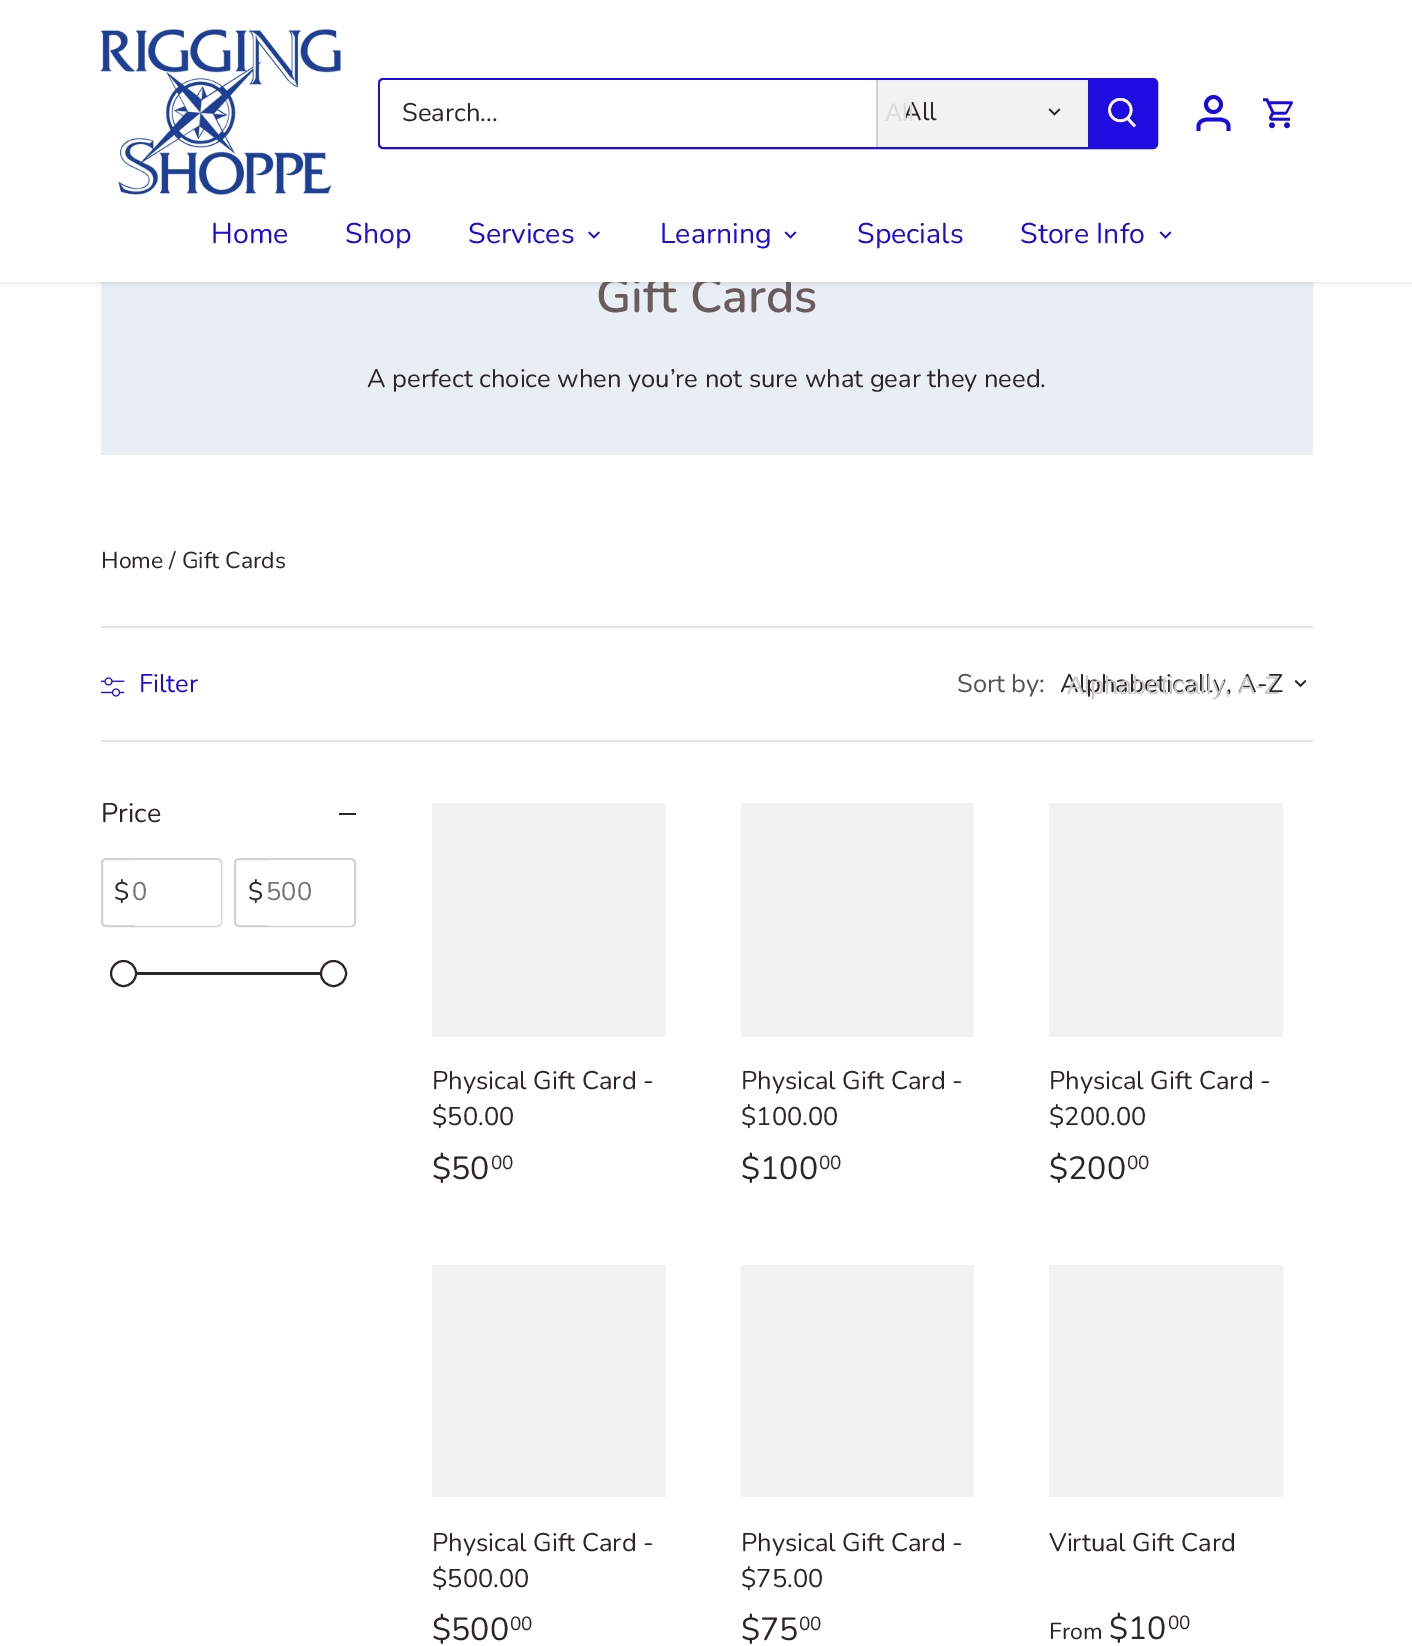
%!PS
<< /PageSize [1412 1646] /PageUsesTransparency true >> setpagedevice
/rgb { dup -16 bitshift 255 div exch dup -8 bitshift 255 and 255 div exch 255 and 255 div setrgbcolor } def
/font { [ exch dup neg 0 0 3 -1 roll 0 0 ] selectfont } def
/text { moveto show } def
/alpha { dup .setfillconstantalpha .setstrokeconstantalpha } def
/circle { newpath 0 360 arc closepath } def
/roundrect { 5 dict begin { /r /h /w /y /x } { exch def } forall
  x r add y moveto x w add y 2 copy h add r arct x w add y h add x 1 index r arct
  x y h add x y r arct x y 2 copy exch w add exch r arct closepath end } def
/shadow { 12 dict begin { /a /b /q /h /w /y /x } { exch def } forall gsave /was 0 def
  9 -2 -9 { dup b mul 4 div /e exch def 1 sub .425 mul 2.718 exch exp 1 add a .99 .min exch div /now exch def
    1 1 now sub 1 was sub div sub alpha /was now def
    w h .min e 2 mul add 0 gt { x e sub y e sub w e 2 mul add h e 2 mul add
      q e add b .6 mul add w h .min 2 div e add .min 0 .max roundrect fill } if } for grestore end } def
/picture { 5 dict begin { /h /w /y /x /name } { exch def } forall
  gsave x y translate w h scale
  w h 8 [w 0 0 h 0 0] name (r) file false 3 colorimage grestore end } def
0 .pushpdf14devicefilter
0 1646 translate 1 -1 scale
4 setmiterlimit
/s1 { /Nunito-SemiBold 48 font 16#6A5B5C rgb } def
/s2 { /Nunito-Regular 25.5 font 16#2C2528 rgb } def
/s3 { /LiberationSans-Regular 25.5 font 16#DCDBDB rgb } def
/s4 { /Nunito-Regular 28.5 font 16#1B0ADB rgb } def
/s5 { /Nunito-Regular 23 font 16#2C2528 rgb } def
/s6 { /Nunito-Regular 25.5 font 16#1B0ADB rgb } def
/s7 { /Nunito-Regular 25.5 font 16#565153 rgb } def
/s8 { /LiberationSans-Regular 25.5 font 16#CAC9C9 rgb } def
/s9 { /Nunito-Regular 27 font 16#2C2528 rgb } def
/s10 { /Nunito-Regular 25.5 font 16#757575 rgb } def
/s11 { /Nunito-Regular 32 font 16#2C2528 rgb } def
/s12 { /Nunito-Regular 19 font 16#2C2528 rgb } def
16#FFFFFF rgb
0 0 1412 1646 rectfill
16#E8EEF3 rgb
101 282 1212 173 rectfill
16#000000 rgb
-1 -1 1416 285 0 2 0.08 shadow
s1
(Gift Cards) 596 312 text
16#FFFFFF rgb
0 0 1412 282 rectfill
(pic1.raw) 100 29 241 166 picture
16#200CE0 rgb
2 setlinewidth
379 79 778 69 4 roundrect stroke
16#FFFFFF rgb
385 80 moveto 876 80 lineto 876 147 lineto 385 147 lineto 382 147 380 145 380 142 curveto 380 85 lineto 380 82 382 80 385 80 curveto closepath fill
s2
(Search...) 402 121 text
16#F2F2F2 rgb
878 80 210 67 rectfill
16#D3D1D2 rgb
876 80 2 67 rectfill
s2
(All) 903 120 text
s3
(All) 885 121 text
(pic2.raw) 1048 108 13 8 picture
16#200CE0 rgb
1088 80 moveto 1154 80 lineto 1155.5 80 1157 81.5 1157 83 curveto 1157 144 lineto 1157 145.5 1155.5 147 1154 147 curveto 1088 147 lineto closepath fill
(pic3.raw) 1108 98 28 30 picture
16#1B0ADB rgb
3.8 setlinewidth
1213.5 104.5 7.5 circle stroke
1228.5 131 moveto 1228.5 125.5 lineto 1227 118.5 1219 119.5 1213.5 119.5 curveto 1208 119.5 1200 118.5 1198.5 125.5 curveto 1198.5 131 lineto stroke
(pic4.raw) 1263 98 30 31 picture
s4
(Home) 211 243 text
(Shop) 345 243 text
(Services) 468 243 text
(pic5.raw) 588 231 12 8 picture
(Learning) 660 243 text
(pic6.raw) 784 231 13 8 picture
(Specials) 857 243 text
(Store Info) 1020 243 text
(pic6.raw) 1159 231 13 8 picture
s2
(A perfect choice when you’re not sure what gear they need.) 367 387 text
s5
(Home / Gift Cards) 101 568 text
16#E2E2E2 rgb
101 626 1212 2 rectfill
101 740 1212 2 rectfill
(pic7.raw) 101 677 24 20 picture
s6
(Filter) 139 692 text
s7
(Sort by:) 957 692 text
s2
(Alphabetically, A-Z) 1060 692 text
s8
(Alphabetically, A-Z) 1067 694 text
(pic8.raw) 1294 679 13 9 picture
s9
(Price) 101 822 text
339 813 17 2 rectfill
16#D3D1D2 rgb
2 setlinewidth
102 859 119 67 4 roundrect stroke
s2
($) 114 900 text
16#FFFFFF rgb
132 860 89 66 5 roundrect fill
s10
(0) 132 900 text
16#D3D1D2 rgb
235 859 120 67 4 roundrect stroke
s2
($) 248 900 text
16#FFFFFF rgb
266 860 88 66 5 roundrect fill
s10
(500) 266 900 text
16#2C2528 rgb
136 972 185 3 rectfill
16#FFFFFF rgb
123.5 973.5 12.5 circle gsave fill grestore
16#2C2528 rgb
stroke
16#FFFFFF rgb
333.5 973.5 12.5 circle gsave fill grestore
16#2C2528 rgb
stroke
16#F2F2F2 rgb
432 803 234 234 rectfill
s2
(Physical Gift Card -) 432 1089 text
($50.00) 432 1125 text
s11
($50) 432 1179 text
s12
(00) 491 1169 text
16#F2F2F2 rgb
741 803 233 234 rectfill
s2
(Physical Gift Card -) 741 1089 text
($100.00) 741 1125 text
s11
($100) 741 1179 text
s12
(00) 819 1169 text
16#F2F2F2 rgb
1049 803 234 234 rectfill
s2
(Physical Gift Card -) 1049 1089 text
($200.00) 1049 1125 text
s11
($200) 1049 1179 text
s12
(00) 1127 1169 text
16#F2F2F2 rgb
432 1265 234 232 rectfill
s2
(Physical Gift Card -) 432 1551 text
($500.00) 432 1587 text
s11
($500) 432 1640 text
s12
(00) 510 1630 text
16#F2F2F2 rgb
741 1265 233 232 rectfill
s2
(Physical Gift Card -) 741 1551 text
($75.00) 741 1587 text
s11
($75) 741 1640 text
s12
(00) 799 1630 text
16#F2F2F2 rgb
1049 1265 234 232 rectfill
s2
(Virtual Gift Card) 1049 1551 text
s5
(From) 1049 1639 text
s11
($10) 1109 1639 text
s12
(00) 1168 1629 text
.poppdf14devicefilter showpage
